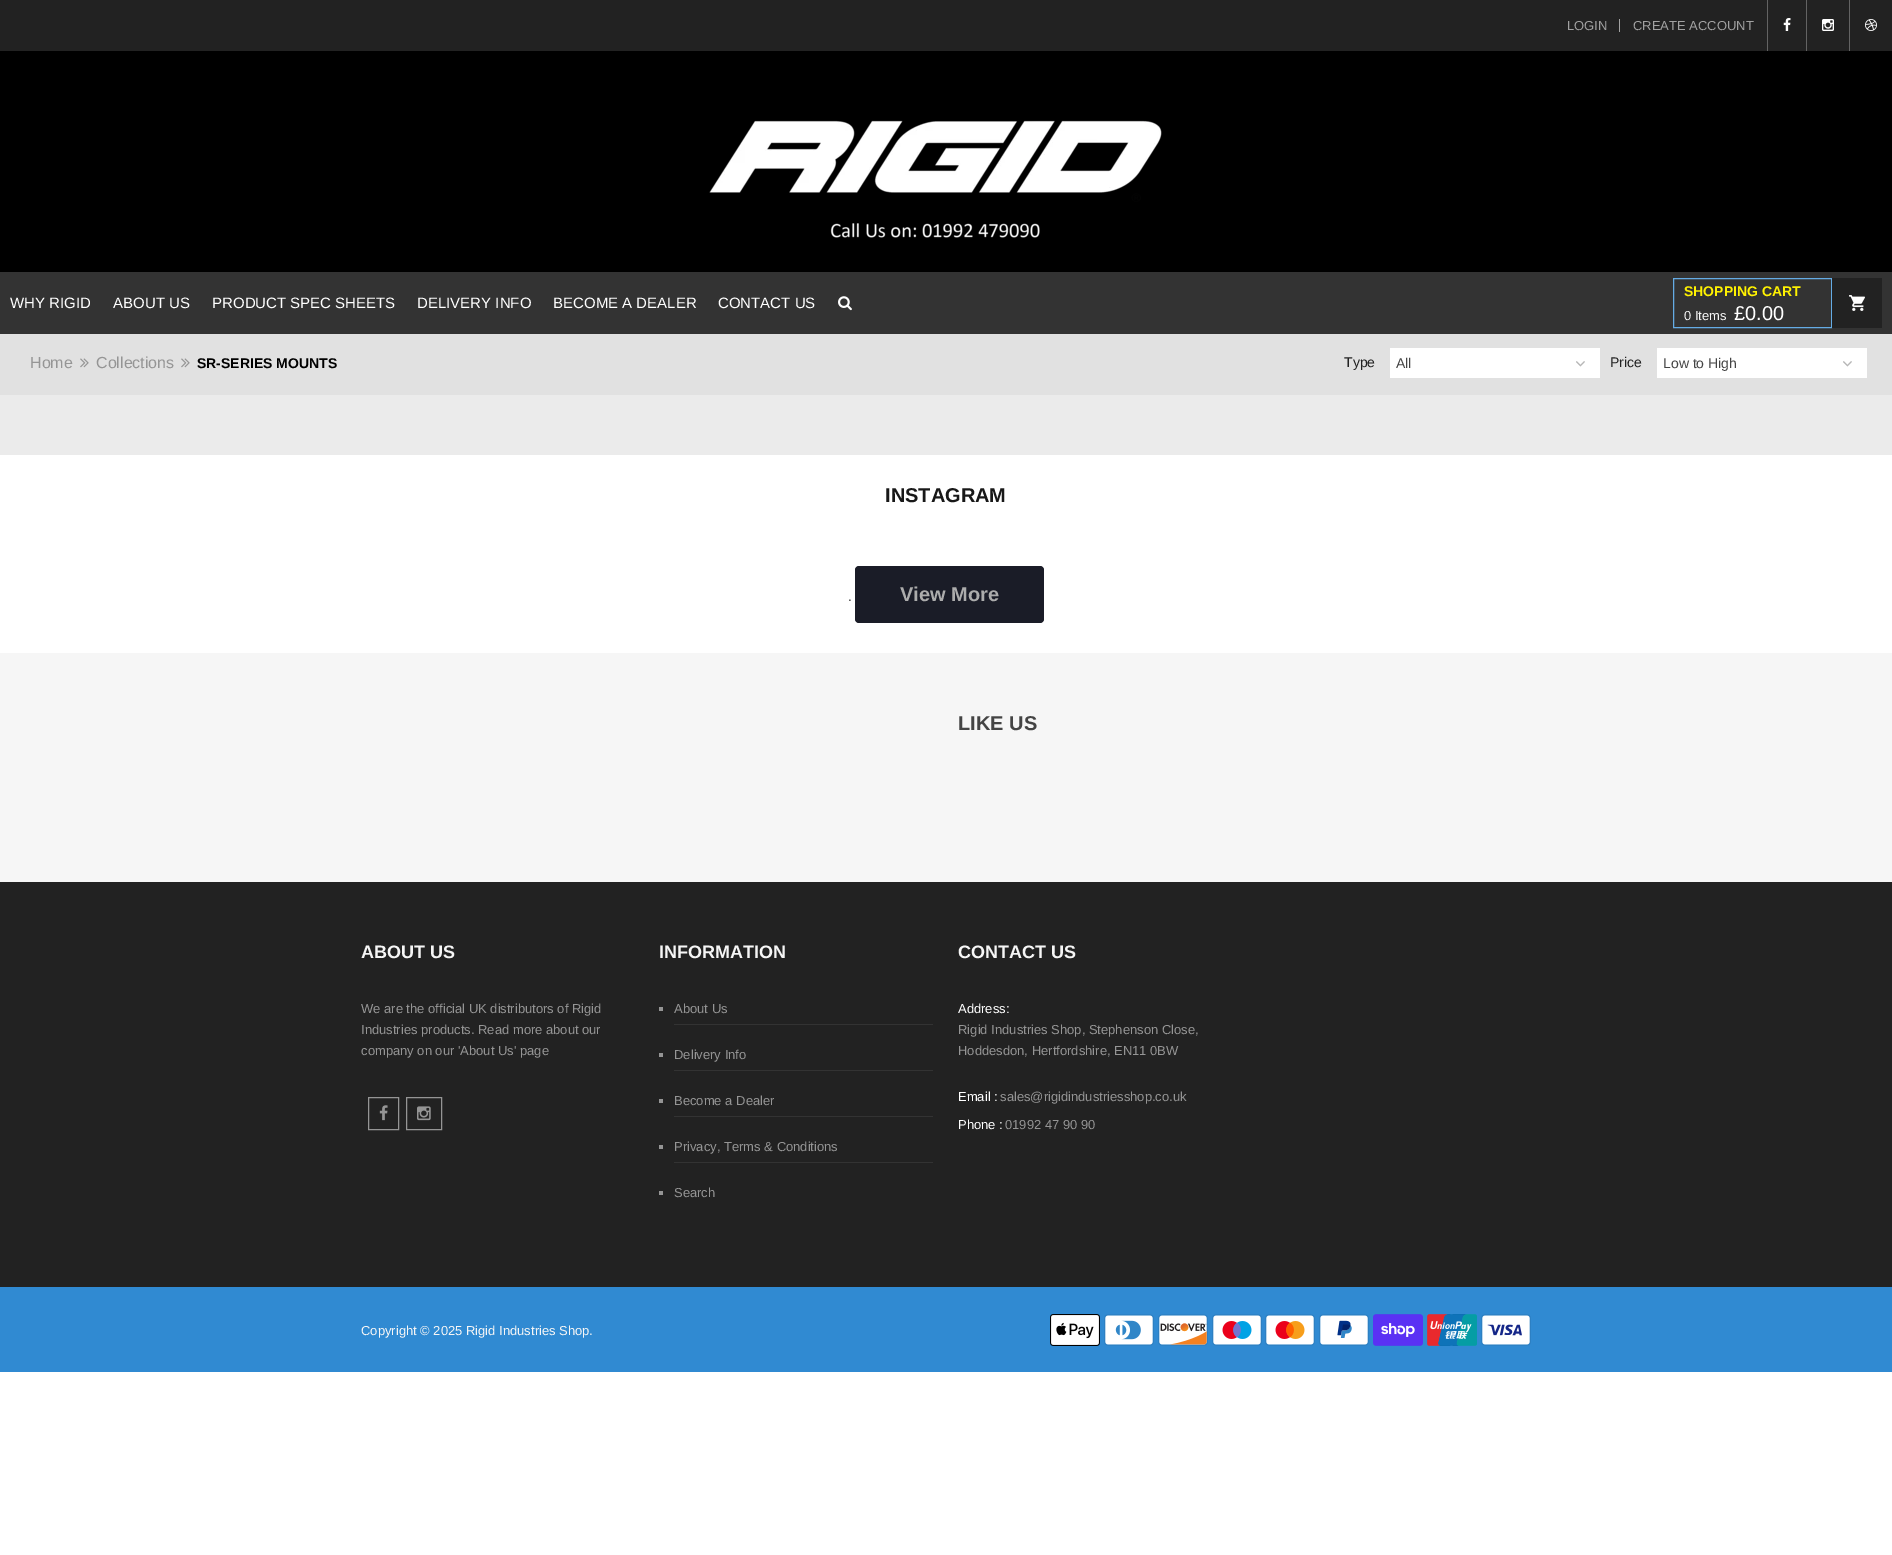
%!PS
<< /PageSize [1892 1555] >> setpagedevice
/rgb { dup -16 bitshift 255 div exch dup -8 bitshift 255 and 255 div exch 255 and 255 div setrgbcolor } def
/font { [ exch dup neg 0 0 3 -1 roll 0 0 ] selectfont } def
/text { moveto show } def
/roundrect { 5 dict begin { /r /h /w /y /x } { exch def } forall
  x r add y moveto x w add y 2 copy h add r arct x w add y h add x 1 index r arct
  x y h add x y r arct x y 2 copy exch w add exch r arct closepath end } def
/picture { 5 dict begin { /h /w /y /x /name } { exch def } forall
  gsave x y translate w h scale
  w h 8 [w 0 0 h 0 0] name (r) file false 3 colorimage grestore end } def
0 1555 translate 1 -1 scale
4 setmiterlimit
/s1 { /LiberationSans-Regular 13 font 16#A1A1A1 rgb } def
/s2 { /LiberationSans-Regular 15 font 16#FFFFFF rgb } def
/s3 { /LiberationSans-Bold 14 font 16#FFF201 rgb } def
/s4 { /LiberationSans-Regular 13 font 16#F6F6F6 rgb } def
/s5 { /LiberationSans-Regular 20 font 16#FFFFFF rgb } def
/s6 { /LiberationSans-Regular 16 font 16#959595 rgb } def
/s7 { /LiberationSans-Bold 14 font 16#000000 rgb } def
/s8 { /LiberationSans-Regular 14 font 16#222222 rgb } def
/s9 { /LiberationSans-Regular 14 font 16#444444 rgb } def
/s10 { /LiberationSans-Bold 20 font 16#181818 rgb } def
/s11 { /LiberationSans-Regular 14 font 16#2B2B2B rgb } def
/s12 { /LiberationSans-Bold 20 font 16#ACACAC rgb } def
/s13 { /LiberationSans-Bold 20 font 16#444444 rgb } def
/s14 { /LiberationSans-Bold 18 font 16#F6F6F6 rgb } def
/s15 { /LiberationSans-Regular 13 font 16#959595 rgb } def
/s16 { /LiberationSans-Regular 13 font 16#FFFFFF rgb } def
16#FFFFFF rgb
0 0 1892 1555 rectfill
16#222222 rgb
0 0 1892 51 rectfill
s1
(LOGIN) 1567 30 text
1619 19 1 13 rectfill
(CREATE ACCOUNT) 1633 30 text
16#636363 rgb
1767 0 1 51 rectfill
(pic1.raw) 1783 18 8 13 picture
1806 0 1 51 rectfill
(pic2.raw) 1822 19 12 12 picture
1849 0 1 51 rectfill
(pic3.raw) 1865 19 12 12 picture
16#000000 rgb
0 51 1892 221 rectfill
16#E2E2E2 rgb
0 334 1892 1 rectfill
(pic4.raw) 709 120 453 118 picture
16#333333 rgb
0 272 1892 62 rectfill
s2
(WHY RIGID) 10 308 text
(ABOUT US) 113 308 text
(PRODUCT SPEC SHEETS) 212 308 text
(DELIVERY INFO) 417 308 text
(BECOME A DEALER) 553 308 text
(CONTACT US) 718 308 text
(pic5.raw) 838 296 14 15 picture
16#65ACE5 rgb
1673.5 278.5 158 49 rectstroke
s3
(SHOPPING CART) 1684 296 text
s4
(0 Items) 1684 320 text
s5
(£0.00) 1734 320 text
16#222222 rgb
1832 278 50 50 rectfill
(pic6.raw) 1849 295 16 16 picture
16#EBEBEB rgb
0 395 1892 60 rectfill
16#E1E1E1 rgb
0 335 1892 60 rectfill
s6
(Home) 30 368 text
(pic7.raw) 80 358 9 10 picture
(Collections) 96 368 text
(pic7.raw) 181 358 9 10 picture
s7
(SR-SERIES MOUNTS) 197 368 text
s8
(Type) 1344 367 text
16#FFFFFF rgb
1390 348 210 30 rectfill
s9
(All) 1396 368 text
(pic8.raw) 1576 361 9 6 picture
s8
(Price) 1610 367 text
16#FFFFFF rgb
1657 348 210 30 rectfill
s9
(Low to High) 1663 368 text
(pic8.raw) 1843 361 9 6 picture
s10
(INSTAGRAM) 885 502 text
s11
(.) 848 601 text
16#1A1C27 rgb
855 566 189 57 4 roundrect fill
s12
(View More) 900 601 text
16#F6F6F6 rgb
0 653 1892 229 rectfill
s13
(LIKE US) 958 730 text
16#222222 rgb
0 882 1892 405 rectfill
s14
(ABOUT US) 361 958 text
s15
(We are the official UK distributors of Rigid) 361 1013 text
(Industries products. Read more about our) 361 1034 text
(company on our 'About Us' page) 361 1055 text
368.5 1097.5 30 32 rectstroke
(pic9.raw) 379 1105 9 16 picture
406.5 1097.5 35 32 rectstroke
(pic10.raw) 417 1106 14 15 picture
s14
(INFORMATION) 659 958 text
16#333333 rgb
674 1024 259 1 rectfill
16#959595 rgb
659 1007 4 4 rectfill
s15
(About Us) 674 1013 text
16#333333 rgb
674 1070 259 1 rectfill
16#959595 rgb
659 1053 4 4 rectfill
(Delivery Info) 674 1059 text
16#333333 rgb
674 1116 259 1 rectfill
16#959595 rgb
659 1099 4 4 rectfill
(Become a Dealer) 674 1105 text
16#333333 rgb
674 1162 259 1 rectfill
16#959595 rgb
659 1145 4 4 rectfill
(Privacy, Terms & Conditions) 674 1151 text
659 1191 4 4 rectfill
(Search) 674 1197 text
s14
(CONTACT US) 958 958 text
s16
(Address:) 958 1013 text
s15
(Rigid Industries Shop, Stephenson Close,) 958 1034 text
(Hoddesdon, Hertfordshire, EN11 0BW) 958 1055 text
s16
(Email :) 958 1101 text
s15
(sales@rigidindustriesshop.co.uk) 1000 1101 text
s16
(Phone :) 958 1129 text
s15
(01992 47 90 90) 1005 1129 text
16#308AD2 rgb
0 1287 1892 85 rectfill
s4
(Copyright © 2025 Rigid Industries Shop.) 361 1335 text
(pic11.raw) 1050 1314 50 32 picture
(pic12.raw) 1104 1314 50 32 picture
(pic13.raw) 1158 1314 50 32 picture
(pic14.raw) 1212 1314 50 32 picture
(pic15.raw) 1265 1314 50 32 picture
(pic16.raw) 1319 1314 50 32 picture
(pic17.raw) 1373 1314 50 32 picture
(pic18.raw) 1427 1314 50 32 picture
(pic19.raw) 1481 1314 50 32 picture
showpage
